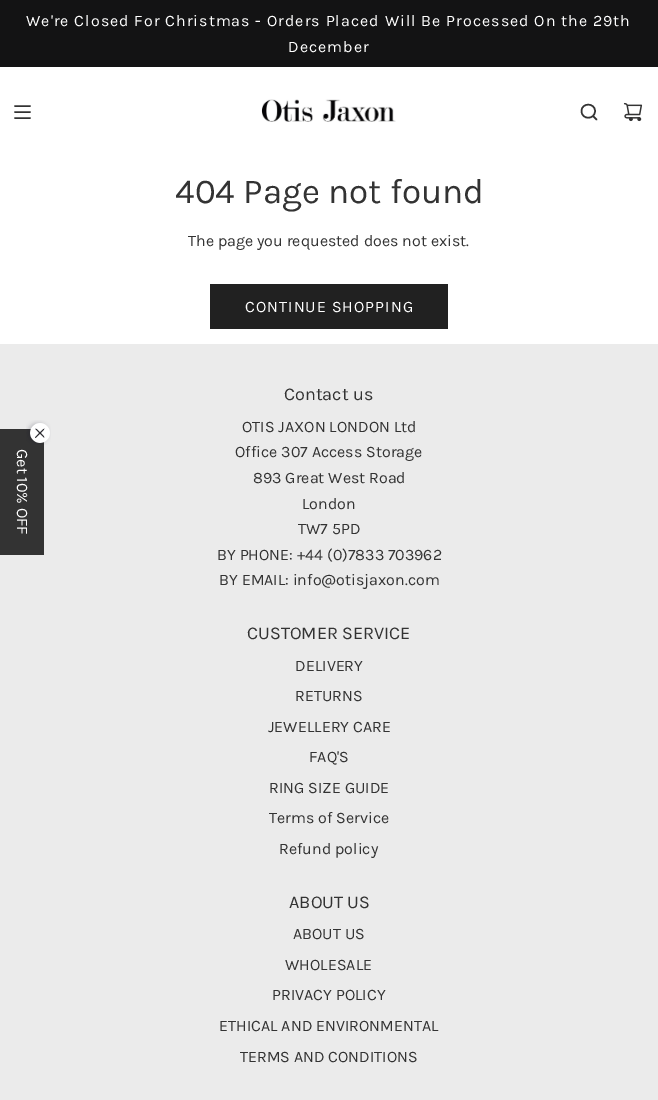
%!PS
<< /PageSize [658 1100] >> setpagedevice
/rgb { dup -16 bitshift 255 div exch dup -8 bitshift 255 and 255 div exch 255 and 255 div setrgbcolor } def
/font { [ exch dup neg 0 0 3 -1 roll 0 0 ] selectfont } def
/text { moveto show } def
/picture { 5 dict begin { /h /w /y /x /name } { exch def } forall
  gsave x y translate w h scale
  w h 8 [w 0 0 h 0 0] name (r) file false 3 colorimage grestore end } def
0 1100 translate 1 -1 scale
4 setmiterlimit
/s1 { /Karla-Regular 35 font 16#333333 rgb } def
/s2 { /Karla-Regular 16 font 16#333333 rgb } def
/s3 { /Karla-Regular 18 font 16#333333 rgb } def
16#FFFFFF rgb
0 0 658 1100 rectfill
16#EBEBEB rgb
0 344 658 756 rectfill
16#333333 rgb
0 429 44 126 rectfill
(pic1.raw) 26 420 25 25 picture
/Karla-Regular 16 font
16#FFFFFF rgb
gsave 17 449 translate 90 rotate 0 0 moveto (Get 10% OFF) show grestore
16#131314 rgb
0 0 658 67 rectfill
16#FFFFFF rgb
26 26 moveto 1 0 (We're Closed For Christmas - Orders Placed Will Be Processed On the 29th) ashow
288 52 moveto 1 0 (December) ashow
16#333333 rgb
1.5 setlinewidth
1 setlinecap
1 setlinejoin
15 106 moveto 30 106 lineto 15 112 moveto 30 112 lineto 15 118 moveto 30 118 lineto stroke
(pic2.raw) 261 99 135 23 picture
593 116 moveto 596.5 119.5 lineto 581.5 111 moveto 581.5 120 595 120 595 111 curveto 595 102.5 581.5 102.5 581.5 111 curveto closepath stroke
(pic3.raw) 623 102 20 20 picture
s1
(404 Page not found) 175 203 text
s2
(The page you requested does not exist.) 188 246 text
16#212121 rgb
210 284 238 45 rectfill
16#FFFFFF rgb
245 312 moveto 1 0 (CONTINUE SHOPPING) ashow
s3
(Contact us) 284 400 text
s2
(OTIS JAXON LONDON Ltd) 242 432 text
(Office 307 Access Storage) 235 457 text
(893 Great West Road) 253 483 text
(London) 302 509 text
(TW7 5PD) 298 534 text
(BY PHONE: +44 \(0\)7833 703962) 217 560 text
(BY EMAIL: info@otisjaxon.com) 219 585 text
s3
(CUSTOMER SERVICE) 247 639 text
s2
(DELIVERY) 295 671 text
(RETURNS) 295 701 text
(JEWELLERY CARE) 268 732 text
(FAQ'S) 309 762 text
(RING SIZE GUIDE) 269 793 text
(Terms of Service) 269 823 text
(Refund policy) 279 854 text
s3
(ABOUT US) 289 908 text
s2
(ABOUT US) 293 939 text
(WHOLESALE) 285 970 text
(PRIVACY POLICY) 272 1000 text
(ETHICAL AND ENVIRONMENTAL) 219 1031 text
(TERMS AND CONDITIONS) 240 1062 text
showpage
